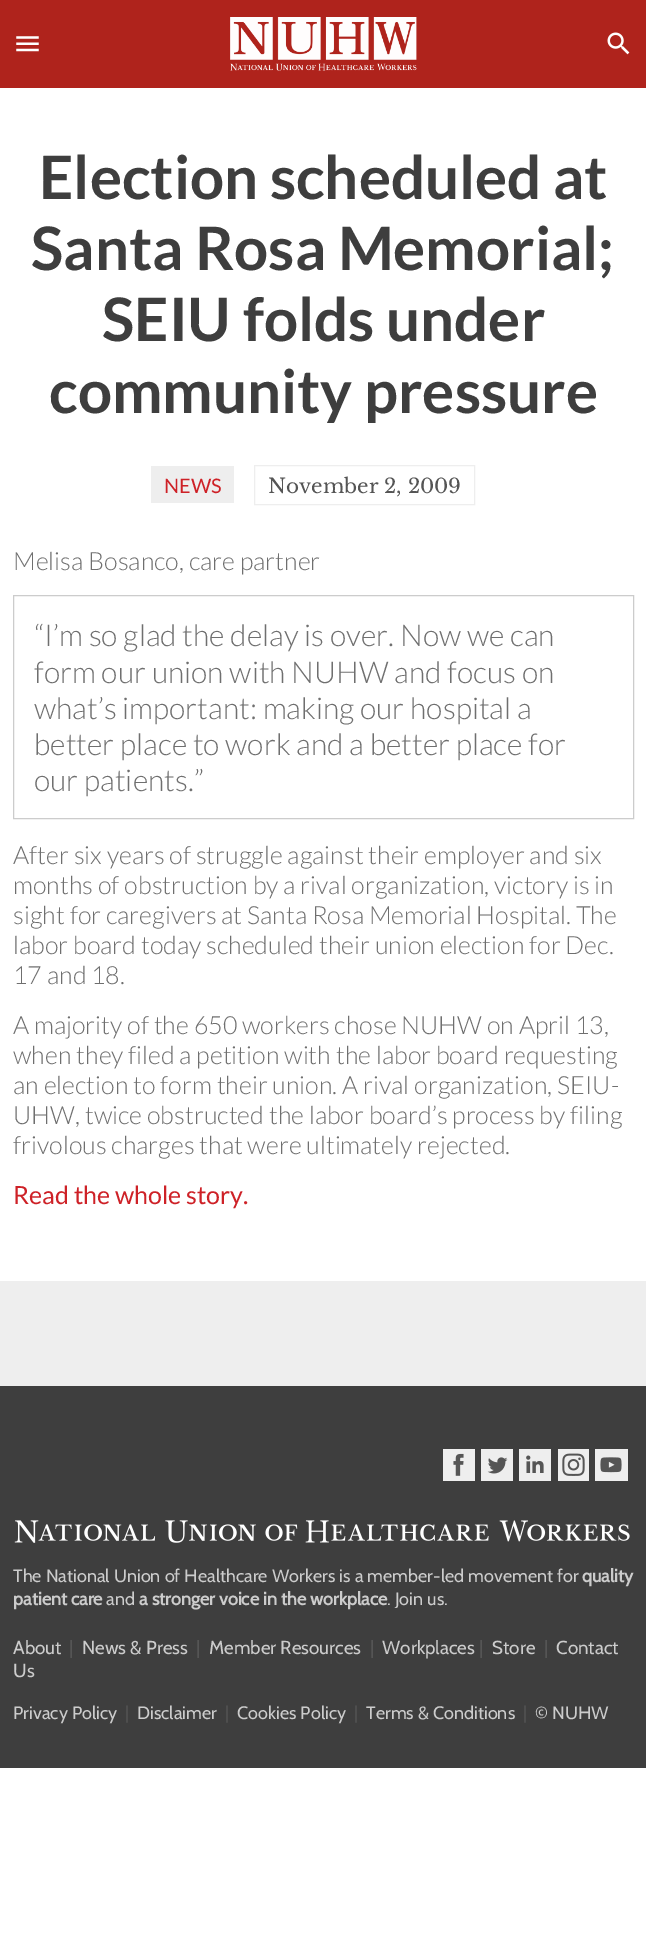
%!PS
<< /PageSize [646 1954] >> setpagedevice
/rgb { dup -16 bitshift 255 div exch dup -8 bitshift 255 and 255 div exch 255 and 255 div setrgbcolor } def
/font { [ exch dup neg 0 0 3 -1 roll 0 0 ] selectfont } def
/text { moveto show } def
/picture { 5 dict begin { /h /w /y /x /name } { exch def } forall
  gsave x y translate w h scale
  w h 8 [w 0 0 h 0 0] name (r) file false 3 colorimage grestore end } def
0 1954 translate 1 -1 scale
4 setmiterlimit
/s1 { /Lato-Bold 60 font 16#3E3E3E rgb } def
/s2 { /Lato-Regular 20 font 16#CE2127 rgb } def
/s3 { /LibreBaskerville-Regular 20 font 16#555555 rgb } def
/s4 { /Lato-Light 25 font 16#6F6F6F rgb } def
/s5 { /Lato-Light 30 font 16#6F6F6F rgb } def
/s6 { /Lato-Regular 25 font 16#CE2127 rgb } def
/s7 { /Cabin-Regular 18 font 16#CCCCCC rgb } def
/s8 { /Cabin-Bold 18 font 16#CCCCCC rgb } def
/s9 { /Cabin-Regular 18.75 font 16#CCCCCC rgb } def
/s10 { /Cabin-Regular 18.75 font 16#555555 rgb } def
/s11 { /Cabin-Regular 18 font 16#555555 rgb } def
16#FFFFFF rgb
0 0 646 1954 rectfill
16#AF231C rgb
0 0 646 88 rectfill
(pic1.raw) 16 36 23 16 picture
(pic2.raw) 230 17 187 54 picture
(pic3.raw) 607 32 23 23 picture
s1
(Election scheduled at) 39 199 text
(Santa Rosa Memorial;) 31 270 text
(SEIU folds under) 102 341 text
(community pressure) 49 413 text
16#EEEEEE rgb
151 466 83 37 rectfill
s2
(NEWS) 164 493 text
16#EEEEEE rgb
254.5 465.5 220 39 rectstroke
s3
(November 2, 2009) 268 493 text
s4
(Melisa Bosanco, care partner) 13 570 text
16#CCCCCC rgb
13.5 595.5 620 223 rectstroke
s5
(“I’m so glad the delay is over. Now we can) 34 646 text
(form our union with NUHW and focus on) 34 683 text
(what’s important: making our hospital a) 34 719 text
(better place to work and a better place for) 34 755 text
(our patients.”) 34 791 text
s4
(After six years of struggle against their employer and six) 13 864 text
(months of obstruction by a rival organization, victory is in) 13 894 text
(sight for caregivers at Santa Rosa Memorial Hospital. The) 13 924 text
(labor board today scheduled their union election for Dec.) 13 954 text
(17 and 18.) 13 984 text
(A majority of the 650 workers chose NUHW on April 13,) 13 1034 text
(when they filed a petition with the labor board requesting) 13 1064 text
(an election to form their union. A rival organization, SEIU-) 13 1094 text
(UHW, twice obstructed the labor board’s process by filing) 13 1124 text
(frivolous charges that were ultimately rejected.) 13 1154 text
s6
(Read the whole story.) 13 1204 text
16#EEEEEE rgb
0 1281 646 105 rectfill
16#3E3E3E rgb
0 1386 646 382 rectfill
16#EEEEEE rgb
443 1449 32 32 rectfill
(pic4.raw) 453 1453 11 23 picture
481 1449 32 32 rectfill
(pic5.raw) 487 1457 21 17 picture
519 1449 32 32 rectfill
(pic6.raw) 526 1455 18 18 picture
558 1449 31 32 rectfill
(pic7.raw) 562 1453 23 23 picture
595 1449 33 32 rectfill
(pic8.raw) 600 1457 22 16 picture
(pic9.raw) 14 1520 616 23 picture
s7
(The National Union of Healthcare Workers is a member-led movement for) 13 1582 text
s8
(quality) 582 1582 text
(patient care) 13 1605 text
s7
(and) 106 1605 text
s8
(a stronger voice in the workplace) 139 1605 text
s7
(. Join us.) 387 1605 text
s9
(About) 13 1654 text
s10
(|) 69 1654 text
s9
(News & Press) 82 1654 text
s10
(|) 196 1654 text
s9
(Member Resources) 209 1654 text
s10
(|) 370 1654 text
s9
(Workplaces) 382 1654 text
s10
(|) 479 1654 text
s9
(Store) 492 1654 text
s10
(|) 544 1654 text
s9
(Contact) 556 1654 text
(Us) 13 1677 text
s7
(Privacy Policy) 13 1719 text
s11
(|) 125 1719 text
s7
(Disclaimer) 137 1719 text
s11
(|) 225 1719 text
s7
(Cookies Policy) 237 1719 text
s11
(|) 354 1719 text
s7
(Terms & Conditions) 366 1719 text
s11
(|) 523 1719 text
s7
(© NUHW) 535 1719 text
showpage
